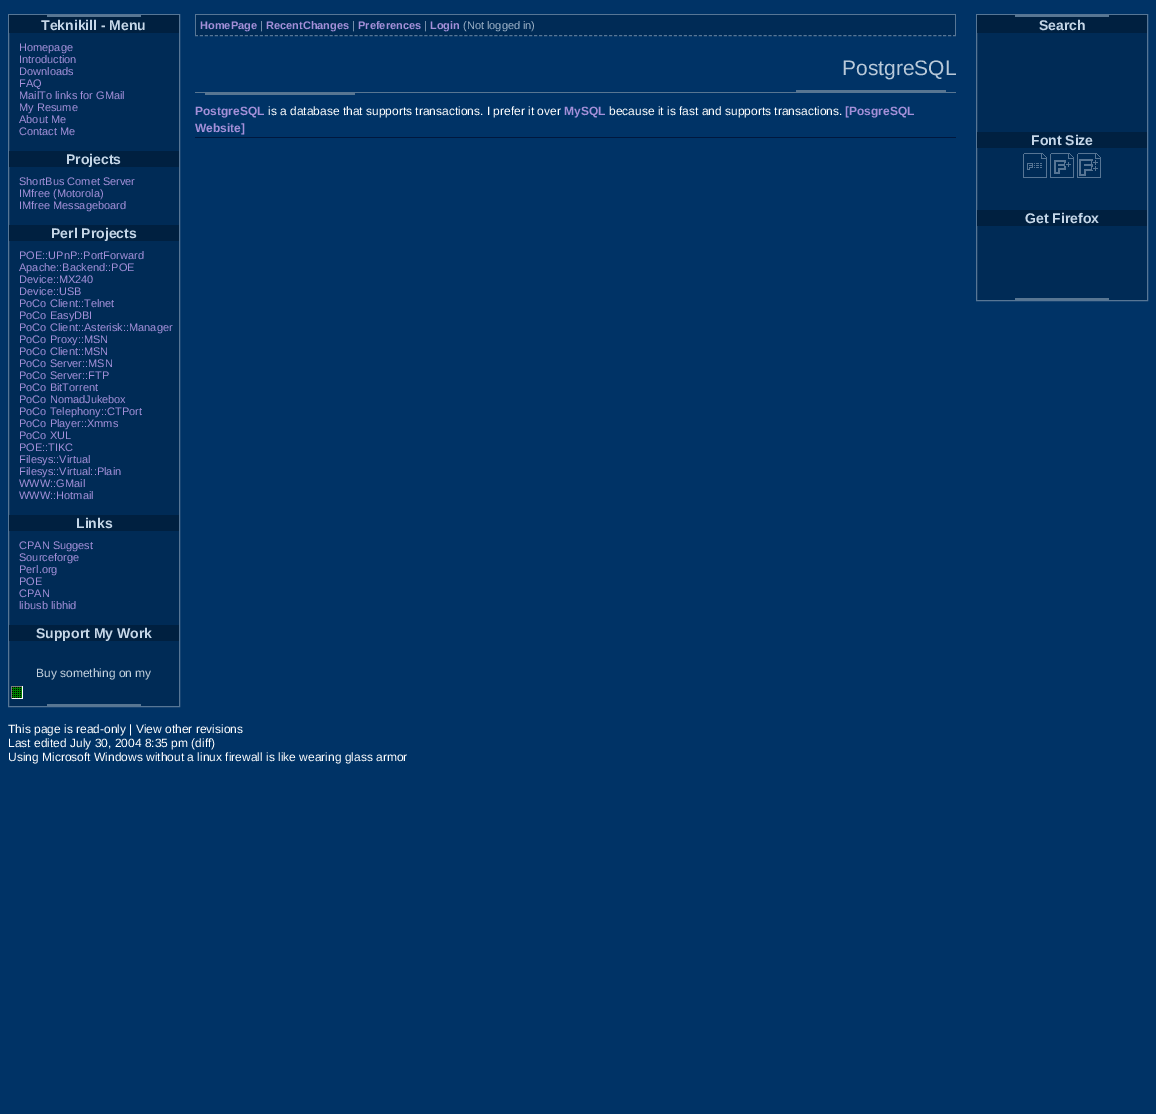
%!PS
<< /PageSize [1156 1114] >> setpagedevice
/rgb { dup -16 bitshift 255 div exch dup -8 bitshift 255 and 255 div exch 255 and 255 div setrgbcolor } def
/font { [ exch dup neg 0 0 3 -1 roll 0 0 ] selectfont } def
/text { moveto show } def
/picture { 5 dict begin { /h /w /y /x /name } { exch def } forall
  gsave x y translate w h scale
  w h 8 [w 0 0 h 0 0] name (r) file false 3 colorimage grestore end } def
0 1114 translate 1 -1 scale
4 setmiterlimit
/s1 { /LiberationSans-Bold 14 font 16#C6D7E8 rgb } def
/s2 { /LiberationSans-Regular 11 font 16#A490D9 rgb } def
/s3 { /LiberationSans-Regular 12 font 16#C5D2DE rgb } def
/s4 { /LiberationSans-Bold 11 font 16#A490D9 rgb } def
/s5 { /LiberationSans-Regular 11 font 16#9DB3C8 rgb } def
/s6 { /LiberationSans-Regular 21 font 16#B9C9D9 rgb } def
/s7 { /LiberationSans-Bold 12 font 16#A490D9 rgb } def
/s8 { /LiberationSans-Regular 12 font 16#FFFFFF rgb } def
16#003366 rgb
0 0 1156 1114 rectfill
16#002B56 rgb
9 33 170 673 rectfill
16#577695 rgb
8.5 14.5 171 692 rectstroke
16#002040 rgb
9 15 170 18 rectfill
16#587692 rgb
47 15 94 2 rectfill
s1
(Teknikill - Menu) 41 30 text
s2
(Homepage) 19 51 text
(Introduction) 19 63 text
(Downloads) 19 75 text
(FAQ) 19 87 text
(MailTo links for GMail) 19 99 text
(My Resume) 19 111 text
(About Me) 19 123 text
(Contact Me) 19 135 text
16#002040 rgb
9 151 170 16 rectfill
s1
(Projects) 66 164 text
s2
(ShortBus Comet Server) 19 185 text
(IMfree \(Motorola\)) 19 197 text
(IMfree Messageboard) 19 209 text
16#002040 rgb
9 225 170 16 rectfill
s1
(Perl Projects) 51 238 text
s2
(POE::UPnP::PortForward) 19 259 text
(Apache::Backend::POE) 19 271 text
(Device::MX240) 19 283 text
(Device::USB) 19 295 text
(PoCo Client::Telnet) 19 307 text
(PoCo EasyDBI) 19 319 text
(PoCo Client::Asterisk::Manager) 19 331 text
(PoCo Proxy::MSN) 19 343 text
(PoCo Client::MSN) 19 355 text
(PoCo Server::MSN) 19 367 text
(PoCo Server::FTP) 19 379 text
(PoCo BitTorrent) 19 391 text
(PoCo NomadJukebox) 19 403 text
(PoCo Telephony::CTPort) 19 415 text
(PoCo Player::Xmms) 19 427 text
(PoCo XUL) 19 439 text
(POE::TIKC) 19 451 text
(Filesys::Virtual) 19 463 text
(Filesys::Virtual::Plain) 19 475 text
(WWW::GMail) 19 487 text
(WWW::Hotmail) 19 499 text
16#002040 rgb
9 515 170 16 rectfill
s1
(Links) 76 528 text
s2
(CPAN Suggest) 19 549 text
(Sourceforge) 19 561 text
(Perl.org) 19 573 text
(POE) 19 585 text
(CPAN) 19 597 text
(libusb libhid) 19 609 text
16#002040 rgb
9 625 170 16 rectfill
s1
(Support My Work) 36 638 text
s3
(Buy something on my) 36 677 text
(pic1.raw) 11 686 12 13 picture
16#587692 rgb
47 704 94 2 rectfill
16#002B56 rgb
196 15 759 21 rectfill
16#577695 rgb
195 14 761 1 rectfill
955 14 1 22 rectfill
[3 1.99] 0 setdash
195 35.5 moveto 956 35.5 lineto stroke
195 14 1 22 rectfill
s4
(HomePage) 200 29 text
s5
(|) 260 29 text
s4
(RecentChanges) 266 29 text
s5
(|) 352 29 text
s4
(Preferences) 358 29 text
s5
(|) 424 29 text
s4
(Login) 430 29 text
s5
(\(Not logged in\)) 463 29 text
s6
(PostgreSQL) 842 75 text
16#587692 rgb
796 90 150 2 rectfill
195 92 761 1 rectfill
205 93 150 2 rectfill
s7
(PostgreSQL) 195 115 text
s8
(is a database that supports transactions. I prefer it over) 268 115 text
s7
(MySQL) 564 115 text
s8
(because it is fast and supports transactions.) 609 115 text
s7
([PosgreSQL) 845 115 text
(Website]) 195 132 text
16#00183E rgb
195 137 761 1 rectfill
16#002B56 rgb
977 33 170 267 rectfill
16#577695 rgb
[] 0 setdash
976.5 14.5 171 286 rectstroke
16#002040 rgb
977 15 170 18 rectfill
16#587692 rgb
1015 15 94 2 rectfill
s1
(Search) 1039 30 text
16#002040 rgb
977 132 170 16 rectfill
s1
(Font Size) 1031 145 text
(pic2.raw) 1023 153 24 25 picture
(pic3.raw) 1050 153 24 25 picture
(pic4.raw) 1077 153 24 25 picture
16#002040 rgb
977 210 170 16 rectfill
s1
(Get Firefox) 1025 223 text
16#587692 rgb
1015 298 94 2 rectfill
s8
(This page is read-only | View other revisions) 8 733 text
(Last edited July 30, 2004 8:35 pm \(diff\)) 8 747 text
(Using Microsoft Windows without a linux firewall is like wearing glass armor) 8 761 text
showpage
